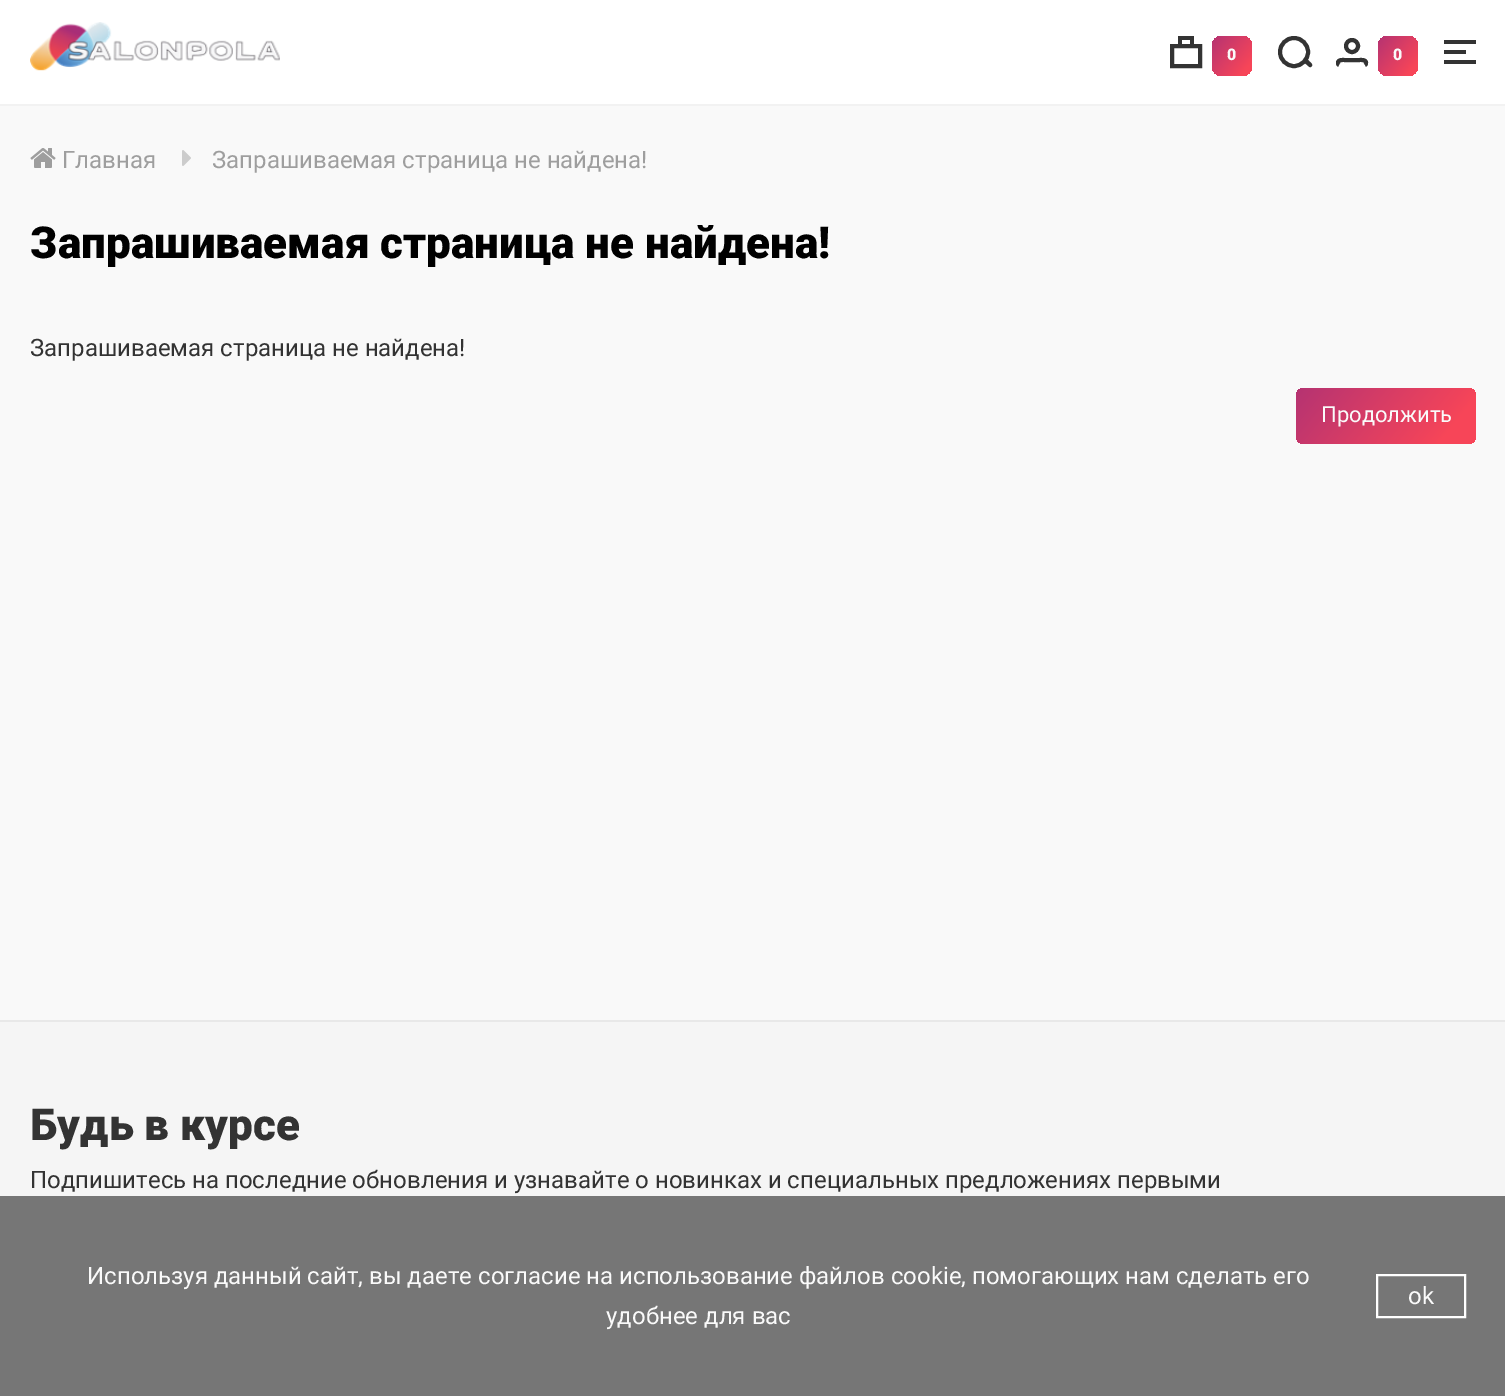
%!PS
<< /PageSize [1505 1396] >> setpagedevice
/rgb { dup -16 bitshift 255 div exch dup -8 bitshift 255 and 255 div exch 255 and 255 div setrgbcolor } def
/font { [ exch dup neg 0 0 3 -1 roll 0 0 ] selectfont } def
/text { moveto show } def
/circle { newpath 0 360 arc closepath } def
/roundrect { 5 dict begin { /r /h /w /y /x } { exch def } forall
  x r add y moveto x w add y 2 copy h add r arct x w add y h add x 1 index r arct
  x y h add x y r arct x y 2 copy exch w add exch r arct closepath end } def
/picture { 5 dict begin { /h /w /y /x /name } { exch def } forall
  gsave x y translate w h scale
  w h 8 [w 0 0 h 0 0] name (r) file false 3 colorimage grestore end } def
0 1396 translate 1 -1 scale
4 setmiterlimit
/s1 { /Roboto-Black 16 font 16#FAFAFA rgb } def
/s2 { /Roboto-Regular 24 font 16#9E9E9E rgb } def
/s3 { /Roboto-Black 44 font 16#000000 rgb } def
/s4 { /Roboto-Regular 24 font 16#333333 rgb } def
/s5 { /Roboto-Regular 22 font 16#FAFAFA rgb } def
/s6 { /Roboto-Black 44 font 16#333333 rgb } def
/s7 { /Roboto-Regular 24 font 16#FAFAFA rgb } def
16#F9F9F9 rgb
0 0 1505 1396 rectfill
16#FFFFFF rgb
0 0 1505 104 rectfill
16#F2F2F2 rgb
0 104 1505 2 rectfill
(pic1.raw) 30 22 250 49 picture
16#333333 rgb
1178 36 16 4 rectfill
1190 36 4 12 rectfill
1178 36 4 12 rectfill
4 setlinewidth
1172 46 28 20 rectstroke
gsave 1212 36 40 40 10 roundrect clip newpath
<< /ShadingType 2 /ColorSpace /DeviceRGB /Coords [1202 32 1254 74] /Extend [true true] /Function << /FunctionType 3 /Domain [0 1] /Functions [<< /FunctionType 2 /Domain [0 1] /C0 [0.655 0.184 0.471] /C1 [0.969 0.271 0.345] /N 1 >> << /FunctionType 2 /Domain [0 1] /C0 [0.969 0.271 0.345] /C1 [0.969 0.271 0.345] /N 1 >>] /Bounds [0.86] /Encode [0 1 0 1] >> >> shfill grestore
s1
(0) 1227 60 text
16#333333 rgb
1294 52 14 circle stroke
1311.5 66.5 moveto 1310 68.5 1308 65.5 1306.5 64.5 curveto 1305.5 63.5 1302.5 61.5 1304.5 59.5 curveto 1306.5 57.5 1308.5 60.5 1309.5 61.5 curveto 1310.5 62.5 1313.5 64.5 1311.5 66.5 curveto closepath fill
1352 46 6 circle stroke
1339 65 moveto 1338 64.5 1338 63.5 1338 62.5 curveto 1338.5 59.5 1342.5 60 1344.5 60 curveto 1359.5 60 lineto 1361.5 60 1365.5 59.5 1366 62.5 curveto 1366 63.5 1366 64.5 1365 65 curveto stroke
gsave 1378 36 40 40 10 roundrect clip newpath
<< /ShadingType 2 /ColorSpace /DeviceRGB /Coords [1368 32 1420 74] /Extend [true true] /Function << /FunctionType 3 /Domain [0 1] /Functions [<< /FunctionType 2 /Domain [0 1] /C0 [0.655 0.184 0.471] /C1 [0.969 0.271 0.345] /N 1 >> << /FunctionType 2 /Domain [0 1] /C0 [0.969 0.271 0.345] /C1 [0.969 0.271 0.345] /N 1 >>] /Bounds [0.86] /Encode [0 1 0 1] >> >> shfill grestore
s1
(0) 1393 60 text
16#333333 rgb
1444 40 32 4 rectfill
1444 50 22 4 rectfill
1444 60 32 4 rectfill
(pic2.raw) 30 148 26 20 picture
s2
(Главная) 62 168 text
(pic3.raw) 182 150 9 16 picture
(Запрашиваемая страница не найдена!) 212 168 text
s3
(Запрашиваемая страница не найдена!) 30 258 text
s4
(Запрашиваемая страница не найдена!) 30 356 text
gsave 1296 388 180 56 8 roundrect clip newpath
<< /ShadingType 2 /ColorSpace /DeviceRGB /Coords [1294 341 1454 471] /Extend [true true] /Function << /FunctionType 3 /Domain [0 1] /Functions [<< /FunctionType 2 /Domain [0 1] /C0 [0.655 0.184 0.471] /C1 [0.969 0.271 0.345] /N 1 >> << /FunctionType 2 /Domain [0 1] /C0 [0.969 0.271 0.345] /C1 [0.969 0.271 0.345] /N 1 >>] /Bounds [0.86] /Encode [0 1 0 1] >> >> shfill grestore
s5
(Продолжить) 1321 422 text
16#F5F5F5 rgb
0 1022 1505 174 rectfill
16#E8E8E8 rgb
0 1020 1505 2 rectfill
s6
(Будь в курсе) 30 1140 text
s4
(Подпишитесь на последние обновления и узнавайте о новинках и специальных предложениях первыми) 30 1188 text
16#767676 rgb
0 1196 1505 200 rectfill
s7
(Используя данный сайт, вы даете согласие на использование файлов cookie, помогающих нам сделать его) 87 1284 text
(удобнее для вас) 606 1324 text
16#FFFFFF rgb
2 setlinewidth
1377 1275 88 42 rectstroke
s7
(ok) 1408 1304 text
showpage
